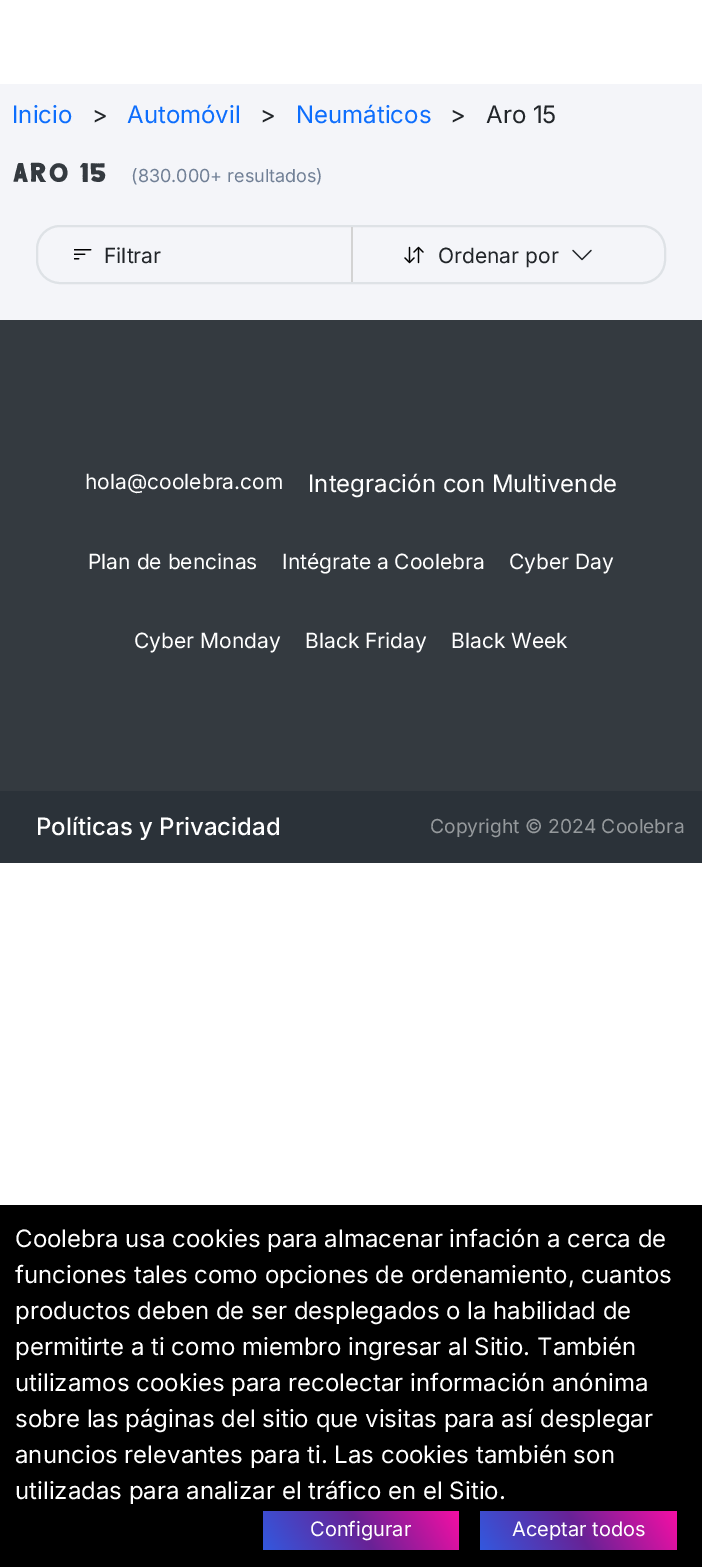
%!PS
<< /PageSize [702 1567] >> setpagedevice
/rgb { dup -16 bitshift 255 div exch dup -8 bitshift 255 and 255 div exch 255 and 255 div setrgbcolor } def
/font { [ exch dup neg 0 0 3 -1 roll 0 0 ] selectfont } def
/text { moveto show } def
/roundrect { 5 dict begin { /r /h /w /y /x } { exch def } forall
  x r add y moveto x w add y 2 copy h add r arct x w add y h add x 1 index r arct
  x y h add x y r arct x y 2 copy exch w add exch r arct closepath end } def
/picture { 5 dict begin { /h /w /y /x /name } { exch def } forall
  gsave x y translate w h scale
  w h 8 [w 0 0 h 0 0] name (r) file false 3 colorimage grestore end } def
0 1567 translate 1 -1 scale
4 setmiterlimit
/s1 { /Inter-Regular 24 font 16#0D6EFD rgb } def
/s2 { /Inter-Regular 24 font 16#212529 rgb } def
/s3 { /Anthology-Regular 27 font 16#343A40 rgb } def
/s4 { /Inter-Regular 18 font 16#718096 rgb } def
/s5 { /Inter-Regular 21 font 16#212529 rgb } def
/s6 { /Inter-Regular 21 font 16#FFFFFF rgb } def
/s7 { /Inter-Regular 24 font 16#FFFFFF rgb } def
/s8 { /Inter-Medium 24 font 16#FFFFFF rgb } def
/s9 { /Inter-Regular 19.25 font 16#95999C rgb } def
/s10 { /Inter-Regular 20 font 16#FFFFFF rgb } def
16#FFFFFF rgb
0 0 702 1567 rectfill
16#F4F5F9 rgb
0 84 702 236 rectfill
s1
(Inicio) 12 123 text
s2
(>) 92 123 text
s1
(Automóvil) 127 123 text
s2
(>) 260 123 text
s1
(Neumáticos) 296 123 text
s2
(>) 450 123 text
(Aro 15) 486 123 text
s3
(ARO 15) 12 182 text
s4
(\(830.000+ resultados\)) 131 182 text
16#DEE2E6 rgb
2 setlinewidth
37 226 628 57 23 roundrect stroke
(pic1.raw) 74 249 18 11 picture
s5
(Filtrar) 104 263 text
16#D3D3D3 rgb
351 227 2 55 rectfill
(pic2.raw) 404 246 20 18 picture
s5
(Ordenar por) 438 263 text
(pic3.raw) 572 249 20 12 picture
16#343A40 rgb
0 320 702 471 rectfill
s6
(hola@coolebra.com) 85 489 text
s7
(Integración con Multivende) 308 492 text
s6
(Plan de bencinas) 88 569 text
(Intégrate a Coolebra) 282 569 text
(Cyber Day) 509 569 text
(Cyber Monday) 134 648 text
(Black Friday) 305 648 text
(Black Week) 451 648 text
16#2B3239 rgb
0 791 702 72 rectfill
s8
(Políticas y Privacidad) 36 835 text
s9
(Copyright © 2024 Coolebra) 430 833 text
16#000000 rgb
0 1205 702 362 rectfill
s7
(Coolebra usa cookies para almacenar infación a cerca de) 15 1247 text
(funciones tales como opciones de ordenamiento, cuantos) 15 1283 text
(productos deben de ser desplegados o la habilidad de) 15 1319 text
(permitirte a ti como miembro ingresar al Sitio. También) 15 1355 text
(utilizamos cookies para recolectar información anónima) 15 1391 text
(sobre las páginas del sitio que visitas para así desplegar) 15 1427 text
(anuncios relevantes para ti. Las cookies también son) 15 1463 text
(utilizadas para analizar el tráfico en el Sitio.) 15 1499 text
gsave 263 1511 moveto 459 1511 lineto 459 1550 lineto 263 1550 lineto closepath clip newpath
<< /ShadingType 2 /ColorSpace /DeviceRGB /Coords [279 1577 443 1483] /Extend [true true] /Function << /FunctionType 3 /Domain [0 1] /Functions [<< /FunctionType 2 /Domain [0 1] /C0 [0.2 0.345 0.871] /C1 [0.408 0.133 0.588] /N 1 >> << /FunctionType 2 /Domain [0 1] /C0 [0.408 0.133 0.588] /C1 [0.961 0.059 0.647] /N 1 >>] /Bounds [0.5] /Encode [0 1 0 1] >> >> shfill grestore
s10
(Configurar) 310 1536 text
gsave 480 1511 moveto 677 1511 lineto 677 1550 lineto 480 1550 lineto closepath clip newpath
<< /ShadingType 2 /ColorSpace /DeviceRGB /Coords [496 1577 660 1483] /Extend [true true] /Function << /FunctionType 3 /Domain [0 1] /Functions [<< /FunctionType 2 /Domain [0 1] /C0 [0.2 0.345 0.871] /C1 [0.408 0.133 0.588] /N 1 >> << /FunctionType 2 /Domain [0 1] /C0 [0.408 0.133 0.588] /C1 [0.961 0.059 0.647] /N 1 >>] /Bounds [0.5] /Encode [0 1 0 1] >> >> shfill grestore
(Aceptar todos) 512 1536 text
showpage
